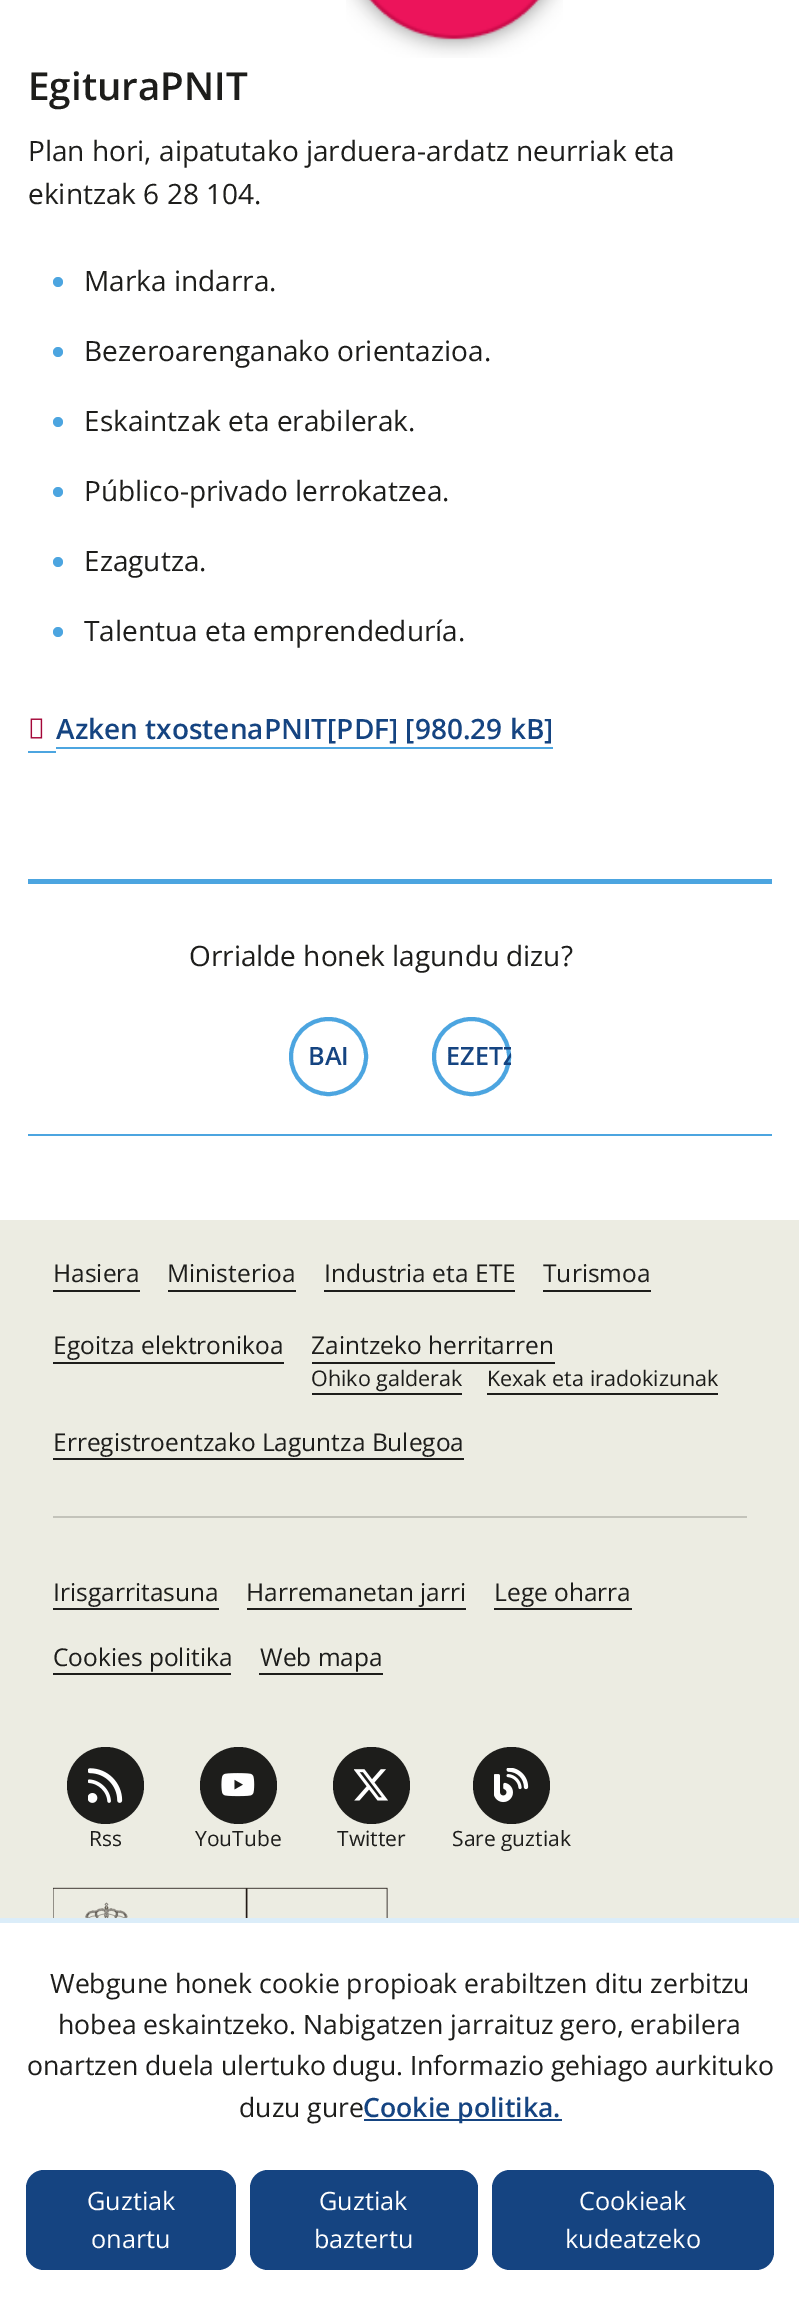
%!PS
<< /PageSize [799 2310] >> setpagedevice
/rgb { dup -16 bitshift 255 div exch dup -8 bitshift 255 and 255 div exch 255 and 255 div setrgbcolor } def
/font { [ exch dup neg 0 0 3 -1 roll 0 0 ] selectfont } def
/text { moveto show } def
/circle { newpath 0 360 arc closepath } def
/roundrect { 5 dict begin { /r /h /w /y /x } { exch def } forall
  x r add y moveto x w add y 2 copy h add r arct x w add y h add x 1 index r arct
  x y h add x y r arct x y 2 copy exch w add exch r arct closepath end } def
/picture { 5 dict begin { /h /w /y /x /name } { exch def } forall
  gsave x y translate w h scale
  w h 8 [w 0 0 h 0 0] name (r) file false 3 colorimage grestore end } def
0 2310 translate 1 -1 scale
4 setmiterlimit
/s1 { /OpenSans-SemiBold 38.5 font 16#1D1D1B rgb } def
/s2 { /OpenSans-Regular 28 font 16#1D1D1B rgb } def
/s3 { /OpenSans-SemiBold 28 font 16#154481 rgb } def
/s4 { /OpenSans-SemiBold 25.25 font 16#154481 rgb } def
/s5 { /OpenSans-Regular 24.5 font 16#1D1D1B rgb } def
/s6 { /OpenSans-Regular 21.5 font 16#1D1D1B rgb } def
/s7 { /OpenSans-Regular 21 font 16#1D1D1B rgb } def
/s8 { /OpenSans-Regular 26.6 font 16#1D1D1B rgb } def
/s9 { /OpenSans-SemiBold 26.6 font 16#154481 rgb } def
/s10 { /OpenSans-Regular 25.25 font 16#FFFFFF rgb } def
16#FFFFFF rgb
0 0 799 2310 rectfill
(pic1.raw) 346 0 217 58 picture
s1
(EgituraPNIT) 28 100 text
s2
(Plan hori, aipatutako jarduera-ardatz neurriak eta) 28 161 text
(ekintzak 6 28 104.) 28 204 text
16#4CA5E0 rgb
58 282 5 circle fill
s2
(Marka indarra.) 84 291 text
16#4CA5E0 rgb
58 352 5 circle fill
s2
(Bezeroarenganako orientazioa.) 84 361 text
16#4CA5E0 rgb
58 422 5 circle fill
s2
(Eskaintzak eta erabilerak.) 84 431 text
16#4CA5E0 rgb
58 492 5 circle fill
s2
(Público-privado lerrokatzea.) 84 501 text
16#4CA5E0 rgb
58 562 5 circle fill
s2
(Ezagutza.) 84 571 text
16#4CA5E0 rgb
58 632 5 circle fill
s2
(Talentua eta emprendeduría.) 84 641 text
16#4CA5E0 rgb
28 751 28 2 rectfill
56 747 497 2 rectfill
(pic2.raw) 30 718 13 21 picture
s3
(Azken txostenaPNIT[PDF] [980.29 kB]) 56 739 text
16#4CA5E0 rgb
28 879 744 5 rectfill
28 1134 744 2 rectfill
s2
(Orrialde honek lagundu dizu?) 189 966 text
16#4CA5E0 rgb
4 setlinewidth
328.5 1056.5 37.5 circle stroke
s4
(BAI) 308 1065 text
16#4CA5E0 rgb
471.5 1056.5 37.5 circle stroke
gsave
432 1017 79 79 rectclip
s4
(EZETZ) 446 1065 text
grestore
16#ECECE2 rgb
0 1220 799 698 rectfill
s5
(Hasiera) 53 1282 text
53 1290 87 2 rectfill
(Ministerioa) 167 1282 text
168 1290 128 2 rectfill
(Industria eta ETE) 324 1282 text
324 1290 191 2 rectfill
(Turismoa) 543 1282 text
543 1290 108 2 rectfill
(Egoitza elektronikoa) 53 1354 text
53 1362 231 2 rectfill
(Zaintzeko herritarren) 311 1354 text
312 1362 243 2 rectfill
s6
(Ohiko galderak) 311 1386 text
312 1393 150 2 rectfill
(Kexak eta iradokizunak) 487 1386 text
487 1393 231 2 rectfill
s5
(Erregistroentzako Laguntza Bulegoa) 53 1451 text
53 1458 411 2 rectfill
16#C3C3BA rgb
53 1516 694 2 rectfill
s5
(Irisgarritasuna) 53 1601 text
53 1608 166 2 rectfill
(Harremanetan jarri) 246 1601 text
247 1608 219 2 rectfill
(Lege oharra) 494 1601 text
494 1608 138 2 rectfill
(Cookies politika) 53 1666 text
53 1673 178 2 rectfill
(Web mapa) 260 1666 text
259 1673 124 2 rectfill
105.5 1785.5 38.5 circle fill
(pic3.raw) 88 1768 35 35 picture
s7
(Rss) 89 1846 text
238.5 1785.5 38.5 circle fill
(pic4.raw) 221 1773 34 24 picture
(YouTube) 195 1846 text
371.5 1785.5 38.5 circle fill
(pic5.raw) 354 1769 34 32 picture
(Twitter) 337 1846 text
511.5 1785.5 38.5 circle fill
(pic6.raw) 494 1768 35 35 picture
(Sare guztiak) 452 1846 text
(pic7.raw) 53 1887 335 31 picture
16#DBEDF9 rgb
0 1918 799 5 rectfill
s8
(Webgune honek cookie propioak erabiltzen ditu zerbitzu) 50 1993 text
(hobea eskaintzeko. Nabigatzen jarraituz gero, erabilera) 58 2034 text
(onartzen duela ulertuko dugu. Informazio gehiago aurkituko) 27 2075 text
(duzu gure) 239 2117 text
16#154481 rgb
364 2119 198 2 rectfill
s9
(Cookie politika.) 363 2117 text
26 2170 210 100 18 roundrect fill
s10
(Guztiak) 87 2210 text
(onartu) 91 2248 text
16#154481 rgb
250 2170 228 100 18 roundrect fill
s10
(Guztiak) 319 2210 text
(baztertu) 314 2248 text
16#154481 rgb
492 2170 282 100 18 roundrect fill
s10
(Cookieak) 579 2210 text
(kudeatzeko) 565 2248 text
showpage
